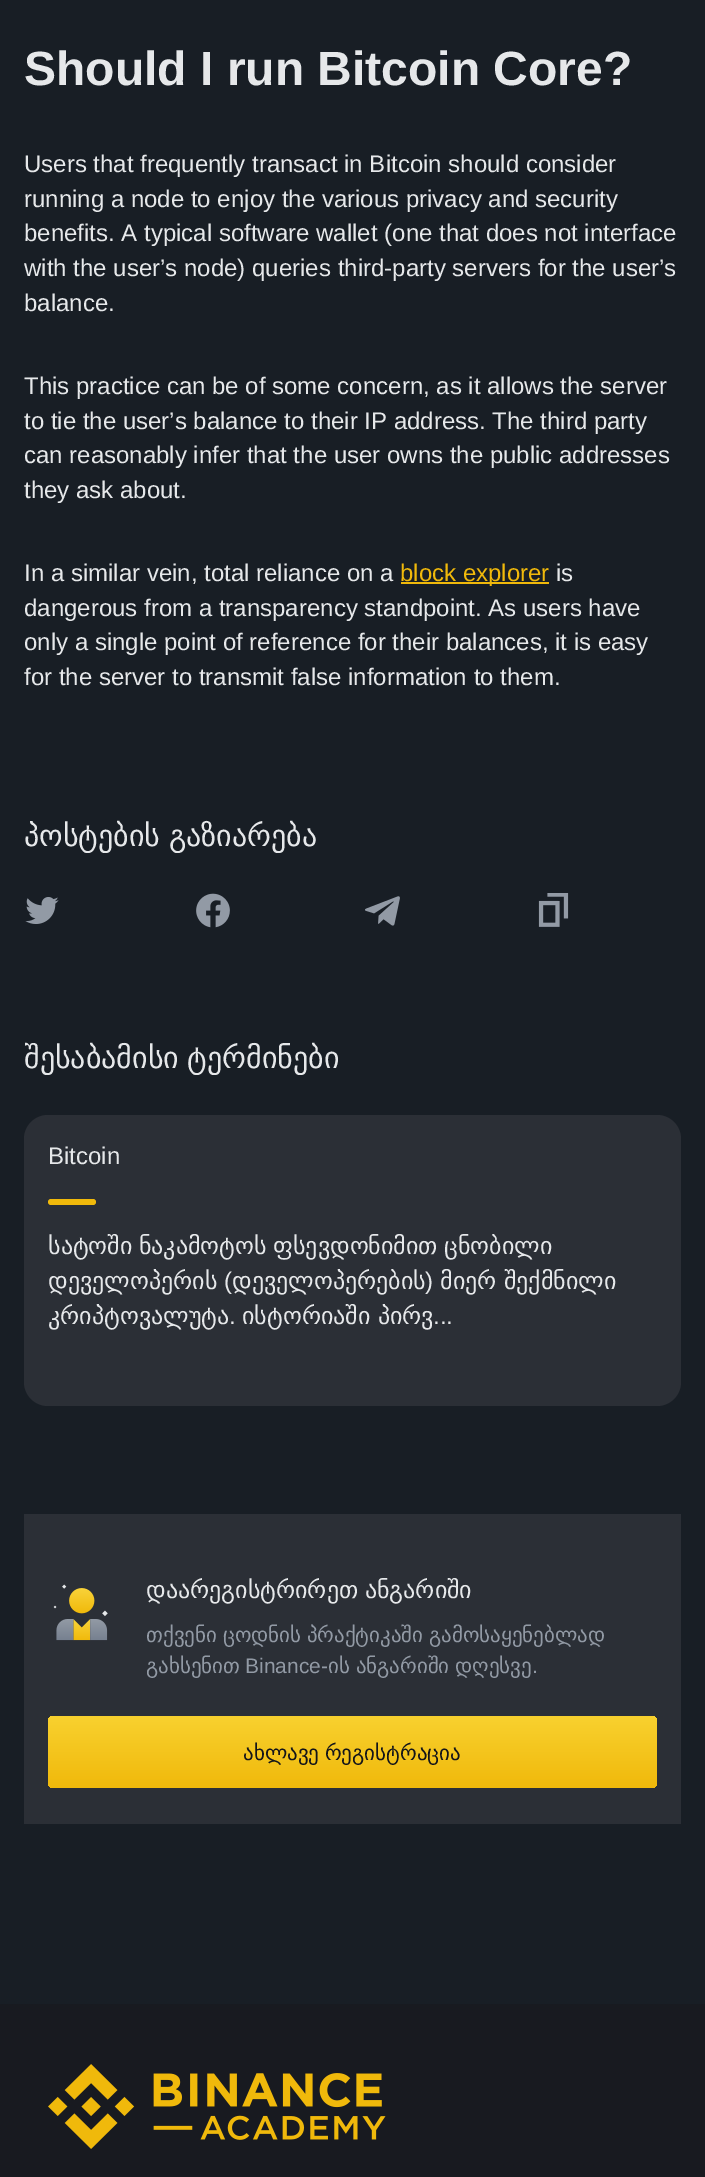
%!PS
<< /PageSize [705 2177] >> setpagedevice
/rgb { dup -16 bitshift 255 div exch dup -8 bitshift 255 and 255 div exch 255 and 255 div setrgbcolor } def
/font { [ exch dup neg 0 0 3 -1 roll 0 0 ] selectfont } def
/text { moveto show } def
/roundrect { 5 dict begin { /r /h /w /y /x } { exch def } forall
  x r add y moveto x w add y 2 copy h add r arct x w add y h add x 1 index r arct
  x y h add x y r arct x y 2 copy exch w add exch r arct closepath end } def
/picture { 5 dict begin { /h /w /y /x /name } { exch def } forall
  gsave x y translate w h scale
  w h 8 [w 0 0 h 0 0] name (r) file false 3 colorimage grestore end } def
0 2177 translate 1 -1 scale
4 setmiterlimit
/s1 { /LiberationSans-Bold 48 font 16#E6E8EA rgb } def
/s2 { /LiberationSans-Regular 24 font 16#E6E8EA rgb } def
/s3 { /LiberationSans-Regular 24 font 16#F0B90B rgb } def
/s4 { /DejaVuSans-Regular 24 font 16#E6E8EA rgb } def
/s5 { /DejaVuSans-Regular 21 font 16#929AA5 rgb } def
/s6 { /LiberationSans-Regular 21 font 16#929AA5 rgb } def
16#181E25 rgb
0 0 705 2177 rectfill
s1
(Should I run Bitcoin Core?) 24 85 text
s2
(Users that frequently transact in Bitcoin should consider) 24 172 text
(running a node to enjoy the various privacy and security) 24 207 text
(benefits. A typical software wallet \(one that does not interface) 24 241 text
(with the user’s node\) queries third-party servers for the user’s) 24 276 text
(balance.) 24 311 text
(This practice can be of some concern, as it allows the server) 24 394 text
(to tie the user’s balance to their IP address. The third party) 24 429 text
(can reasonably infer that the user owns the public addresses) 24 463 text
(they ask about.) 24 498 text
(In a similar vein, total reliance on a) 24 581 text
16#F0B90B rgb
401 582 148 2 rectfill
(block explorer) 400 581 text
s2
(is) 556 581 text
(dangerous from a transparency standpoint. As users have) 24 616 text
(only a single point of reference for their balances, it is easy) 24 650 text
(for the server to transmit false information to them.) 24 685 text
/DejaVuSans-Regular 30 font
24 846 moveto -1 0 32 (პოსტების გაზიარება) widthshow
(pic1.raw) 25 897 34 27 picture
(pic2.raw) 196 893 34 35 picture
(pic3.raw) 365 896 35 30 picture
(pic4.raw) 538 893 31 34 picture
24 1068 moveto -1 0 32 (შესაბამისი ტერმინები) widthshow
16#2B2F36 rgb
24 1115 657 291 24 roundrect fill
s2
(Bitcoin) 48 1164 text
16#F0B90B rgb
48 1199 48 6 3 roundrect fill
/DejaVuSans-Regular 24 font
16#E6E8EA rgb
48 1254 moveto -1 0 32 (სატოში ნაკამოტოს ფსევდონიმით ცნობილი) widthshow
(დეველოპერის) 48 1289 text
s2
(\() 224 1289 text
s4
(დეველოპერების) 232 1289 text
s2
(\)) 425 1289 text
s4
(მიერ შექმნილი) 440 1289 text
(კრიპტოვალუტა) 48 1324 text
s2
(.) 229 1324 text
s4
(ისტორიაში პირვ) 242 1324 text
s2
(...) 433 1324 text
16#2B2F36 rgb
24 1514 657 310 rectfill
(pic5.raw) 53 1584 55 57 picture
/DejaVuSans-Regular 24 font
16#E6E8EA rgb
146 1598 moveto -1 0 32 (დაარეგისტრირეთ ანგარიში) widthshow
/DejaVuSans-Regular 21 font
16#929AA5 rgb
146 1642 moveto -1 0 32 (თქვენი ცოდნის პრაქტიკაში გამოსაყენებლად) widthshow
(გახსენით) 146 1673 text
s6
(Binance-) 245 1673 text
/DejaVuSans-Regular 21 font
328 1673 moveto -1 0 32 (ის ანგარიში დღესვე) widthshow
s6
(.) 532 1673 text
gsave 48 1716 609 72 6 roundrect clip newpath
<< /ShadingType 2 /ColorSpace /DeviceRGB /Coords [353 1716 353 1788] /Extend [true true] /Function << /FunctionType 2 /Domain [0 1] /C0 [0.973 0.82 0.184] /C1 [0.941 0.725 0.043] /N 1 >> >> shfill grestore
/DejaVuSans-Regular 21 font
16#14151A rgb
243 1760 moveto -1 0 32 (ახლავე რეგისტრაცია) widthshow
16#181A20 rgb
0 2004 705 173 rectfill
(pic6.raw) 48 2064 338 85 picture
showpage
